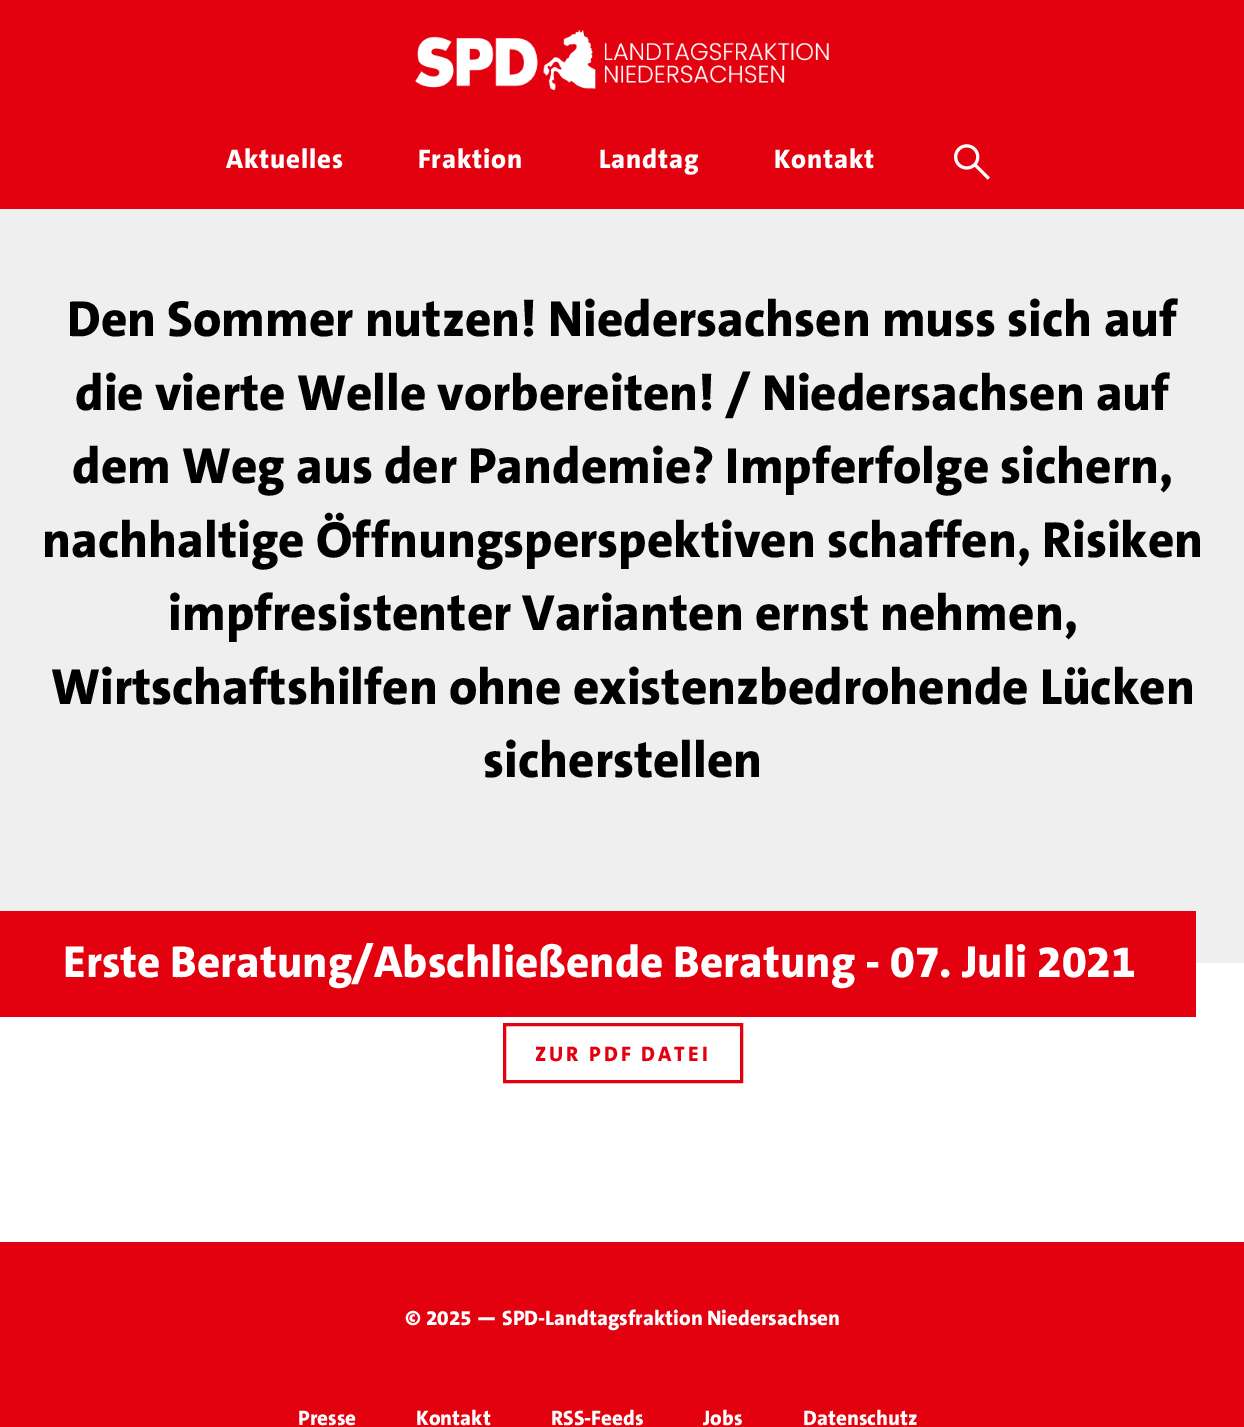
%!PS
<< /PageSize [1244 1427] >> setpagedevice
/rgb { dup -16 bitshift 255 div exch dup -8 bitshift 255 and 255 div exch 255 and 255 div setrgbcolor } def
/font { [ exch dup neg 0 0 3 -1 roll 0 0 ] selectfont } def
/text { moveto show } def
/picture { 5 dict begin { /h /w /y /x /name } { exch def } forall
  gsave x y translate w h scale
  w h 8 [w 0 0 h 0 0] name (r) file false 3 colorimage grestore end } def
0 1427 translate 1 -1 scale
4 setmiterlimit
/s1 { /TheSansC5-ExtraBold 51 font 16#000000 rgb } def
/s2 { /TheSansC5-ExtraBold 45 font 16#FFFFFF rgb } def
/s3 { /TheSansC5-ExtraBold 21 font 16#FFFFFF rgb } def
16#FFFFFF rgb
0 0 1244 1427 rectfill
16#E3000F rgb
0 0 1244 209 rectfill
(pic1.raw) 415 30 414 60 picture
/TheSansC5-ExtraBold 27 font
16#FFFFFF rgb
226 168 moveto 0.75 0 (Aktuelles) ashow
418 168 moveto 0.75 0 (Fraktion) ashow
599 168 moveto 0.75 0 (Landtag) ashow
774 168 moveto 0.75 0 (Kontakt) ashow
(pic2.raw) 954 144 36 36 picture
16#EFEFEF rgb
0 209 1244 754 rectfill
s1
(Den Sommer nutzen! Niedersachsen muss sich auf) 67 336 text
(die vierte Welle vorbereiten! / Niedersachsen auf) 75 410 text
(dem Weg aus der Pandemie? Impferfolge sichern,) 72 483 text
(nachhaltige Öffnungsperspektiven schaffen, Risiken) 42 557 text
(impfresistenter Varianten ernst nehmen,) 168 630 text
(Wirtschaftshilfen ohne existenzbedrohende Lücken) 51 704 text
(sicherstellen) 483 777 text
16#E3000F rgb
0 911 1196 106 rectfill
s2
(Erste Beratung/Abschließende Beratung - 07. Juli 2021) 63 977 text
16#E3000F rgb
3 setlinewidth
504.5 1024.5 237 57 rectstroke
/TheSansC5-ExtraBold 21 font
535 1061 moveto 3 0 (ZUR PDF DATEI) ashow
0 1242 1244 185 rectfill
s3
(© 2025 — SPD-Landtagsfraktion Niedersachsen) 405 1325 text
(Presse) 298 1425 text
(Kontakt) 416 1425 text
(RSS-Feeds) 551 1425 text
(Jobs) 703 1425 text
(Datenschutz) 803 1425 text
showpage
